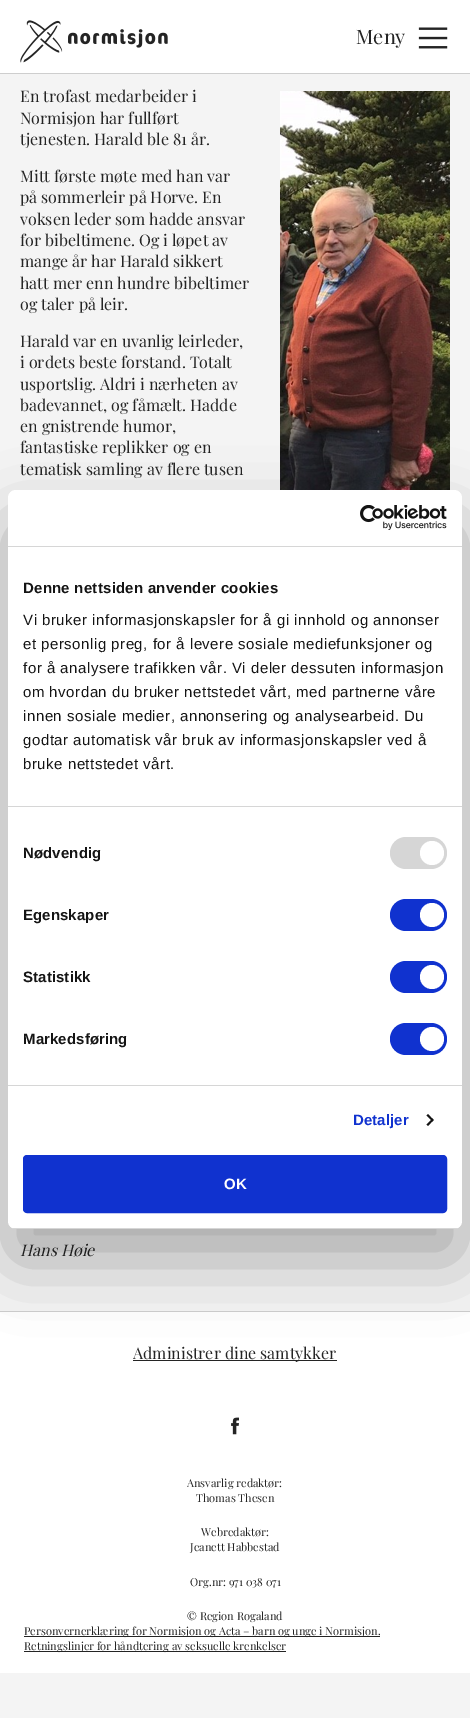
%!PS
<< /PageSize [470 1718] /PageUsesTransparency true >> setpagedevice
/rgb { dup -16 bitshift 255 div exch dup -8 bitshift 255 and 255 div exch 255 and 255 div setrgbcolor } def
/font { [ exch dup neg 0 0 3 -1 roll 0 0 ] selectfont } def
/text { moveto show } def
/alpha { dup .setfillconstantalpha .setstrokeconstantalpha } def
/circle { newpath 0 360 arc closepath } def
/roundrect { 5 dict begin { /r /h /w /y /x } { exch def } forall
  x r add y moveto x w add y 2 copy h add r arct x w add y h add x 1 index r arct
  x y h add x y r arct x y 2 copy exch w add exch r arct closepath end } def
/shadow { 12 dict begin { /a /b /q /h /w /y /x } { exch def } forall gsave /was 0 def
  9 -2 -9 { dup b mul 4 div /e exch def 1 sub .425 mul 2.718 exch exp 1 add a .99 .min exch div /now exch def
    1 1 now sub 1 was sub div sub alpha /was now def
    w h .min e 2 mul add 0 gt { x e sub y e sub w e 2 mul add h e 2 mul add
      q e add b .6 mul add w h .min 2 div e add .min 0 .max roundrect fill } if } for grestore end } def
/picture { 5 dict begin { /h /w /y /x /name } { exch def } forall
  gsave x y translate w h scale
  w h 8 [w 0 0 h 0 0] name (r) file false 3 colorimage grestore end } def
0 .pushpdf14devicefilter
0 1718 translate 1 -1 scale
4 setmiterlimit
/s1 { /PlayfairDisplay-Regular 20 font 16#242424 rgb } def
/s2 { /PlayfairDisplay-Regular 16 font 16#242424 rgb } def
/s3 { /PlayfairDisplay-Italic 16 font 16#242424 rgb } def
/s4 { /PlayfairDisplay-Regular 11 font 16#242424 rgb } def
16#F4F4F4 rgb
0 0 470 1718 rectfill
16#FFFFFF rgb
0 0 470 73 rectfill
16#CECECE rgb
0 73 470 1 rectfill
(pic1.raw) 20 20 148 43 picture
s1
(Meny) 356 44 text
(pic2.raw) 418 27 30 22 picture
s2
(En trofast medarbeider i) 20 102 text
(Normisjon har fullført) 20 124 text
(tjenesten. Harald ble 81 år.) 20 145 text
(pic3.raw) 280 91 170 399 picture
(Mitt første møte med han var) 20 182 text
(på sommerleir på Horve. En) 20 203 text
(voksen leder som hadde ansvar) 20 225 text
(for bibeltimene. Og i løpet av) 20 246 text
(mange år har Harald sikkert) 20 267 text
(hatt mer enn hundre bibeltimer) 20 289 text
(og taler på leir.) 20 310 text
(Harald var en uvanlig leirleder,) 20 347 text
(i ordets beste forstand. Totalt) 20 368 text
(usportslig. Aldri i nærheten av) 20 390 text
(badevannet, og fåmælt. Hadde) 20 411 text
(en gnistrende humor,) 20 432 text
(fantastiske replikker og en) 20 453 text
(tematisk samling av flere tusen) 20 475 text
s3
(Hans Høie) 20 1256 text
16#FFFFFF rgb
0 1312 470 361 rectfill
16#CECECE rgb
0 1311 470 1 rectfill
16#242424 rgb
133 1360 204 1 rectfill
s2
(Administrer dine samtykker) 133 1359 text
(pic4.raw) 231 1417 8 18 picture
s4
(Ansvarlig redaktør:) 187 1487 text
(Thomas Thesen) 196 1502 text
(Webredaktør:) 201 1536 text
(Jeanett Habbestad) 190 1551 text
(Org.nr: 971 038 071) 190 1586 text
(© Region Rogaland) 187 1620 text
24 1636 356 1 rectfill
(Personvernerklæring for Normisjon og Acta – barn og unge i Normisjon.) 24 1635 text
24 1651 262 1 rectfill
(Retningslinjer for håndtering av seksuelle krenkelser) 24 1650 text
16#000000 rgb
8 522 454 739 8 34 0.3 shadow
16#FFFFFF rgb
8 490 454 739 8 roundrect fill
16#D6D6D6 rgb
8 546 454 1 rectfill
(pic5.raw) 360 505 87 25 picture
8 806 454 1 rectfill
/LiberationSans-Bold 15 font
16#141414 rgb
23 593 moveto 0.25 0 (Denne nettsiden anvender cookies) ashow
/LiberationSans-Regular 15 font
23 625 moveto 0.5 0 (Vi bruker informasjonskapsler for å gi innhold og annonser) ashow
23 649 moveto 0.5 0 (et personlig preg, for å levere sosiale mediefunksjoner og) ashow
23 673 moveto 0.5 0 (for å analysere trafikken vår. Vi deler dessuten informasjon) ashow
23 697 moveto 0.5 0 (om hvordan du bruker nettstedet vårt, med partnerne våre) ashow
23 721 moveto 0.5 0 (innen sosiale medier, annonsering og analysearbeid. Du) ashow
23 745 moveto 0.5 0 (godtar automatisk vår bruk av informasjonskapsler ved å) ashow
23 769 moveto 0.5 0 (bruke nettstedet vårt.) ashow
16#D6D6D6 rgb
8 1085 454 1 rectfill
/LiberationSans-Bold 15 font
16#141414 rgb
23 858 moveto 0.1 0 (Nødvendig) ashow
16#D6D6D6 rgb
390 837 57 32 16 roundrect fill
16#FFFFFF rgb
432 853 12 circle fill
16#141414 rgb
23 920 moveto 0.1 0 (Egenskaper) ashow
16#1032CF rgb
390 899 57 32 16 roundrect fill
16#FFFFFF rgb
432 915 12 circle fill
16#141414 rgb
23 982 moveto 0.1 0 (Statistikk) ashow
16#1032CF rgb
390 961 57 32 16 roundrect fill
16#FFFFFF rgb
432 977 12 circle fill
16#141414 rgb
23 1044 moveto 0.1 0 (Markedsføring) ashow
16#1032CF rgb
390 1023 57 32 16 roundrect fill
16#FFFFFF rgb
432 1039 12 circle fill
16#1032CF rgb
353 1125 moveto 0.1 0 (Detaljer) ashow
16#141414 rgb
428 1114 moveto 433.5 1120 lineto 432.5 1121.5 lineto 426.5 1115.5 lineto closepath fill
432.5 1118.5 moveto 433.5 1120 lineto 428 1126 lineto 426.5 1124.5 lineto closepath fill
gsave
8 490 454 739 8 roundrect clip newpath
16#D6D6D6 rgb
8 1228 454 1 rectfill
grestore
16#1032CF rgb
24 1156 422 56 3 roundrect gsave fill grestore
2 setlinewidth
stroke
16#FFFFFF rgb
224 1189 moveto 0.1 0 (OK) ashow
.poppdf14devicefilter showpage
